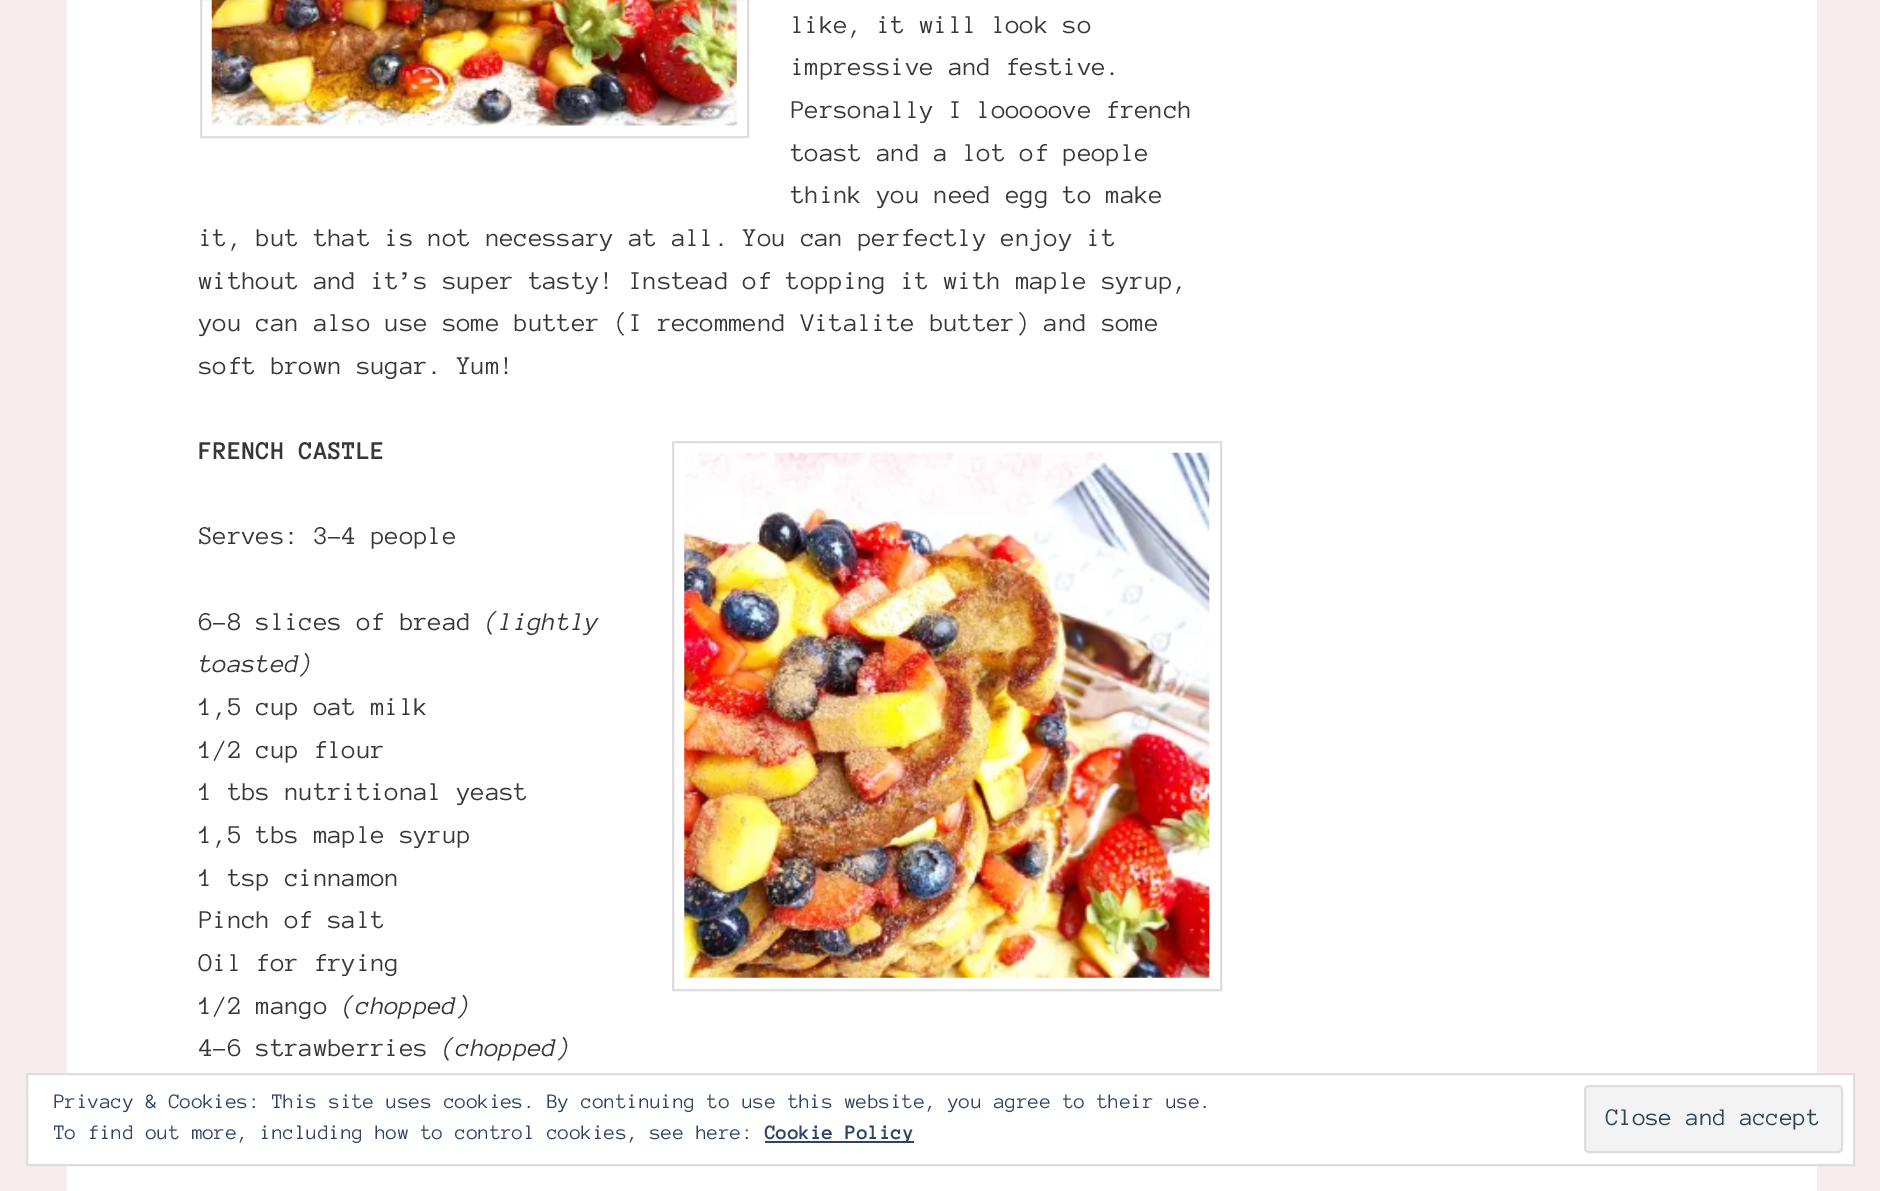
%!PS
<< /PageSize [1880 1191] >> setpagedevice
/rgb { dup -16 bitshift 255 div exch dup -8 bitshift 255 and 255 div exch 255 and 255 div setrgbcolor } def
/font { [ exch dup neg 0 0 3 -1 roll 0 0 ] selectfont } def
/text { moveto show } def
/roundrect { 5 dict begin { /r /h /w /y /x } { exch def } forall
  x r add y moveto x w add y 2 copy h add r arct x w add y h add x 1 index r arct
  x y h add x y r arct x y 2 copy exch w add exch r arct closepath end } def
/picture { 5 dict begin { /h /w /y /x /name } { exch def } forall
  gsave x y translate w h scale
  w h 8 [w 0 0 h 0 0] name (r) file false 3 colorimage grestore end } def
0 1191 translate 1 -1 scale
4 setmiterlimit
/s1 { /AnonymousPro-Regular 26.25 font 16#373737 rgb } def
/s2 { /AnonymousPro-Bold 26.25 font 16#373737 rgb } def
/s3 { /AnonymousPro-Italic 26.25 font 16#373737 rgb } def
/s4 { /AnonymousPro-Regular 21 font 16#2E4467 rgb } def
/s5 { /AnonymousPro-Regular 24.5 font 16#2E4453 rgb } def
/s6 { /AnonymousPro-Bold 21 font 16#2E4467 rgb } def
16#F7EDEE rgb
0 0 1880 1191 rectfill
16#FFFFFF rgb
67 0 1750 1191 rectfill
16#DDDDDD rgb
2 setlinewidth
201 -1 547 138 rectstroke
(pic1.raw) 211 0 526 126 picture
s1
(like, it will look so) 791 33 text
(impressive and festive.) 791 75 text
(Personally I looooove french) 791 118 text
(toast and a lot of people) 791 161 text
(think you need egg to make) 791 203 text
(it, but that is not necessary at all. You can perfectly enjoy it) 199 246 text
(without and it’s super tasty! Instead of topping it with maple syrup,) 199 289 text
(you can also use some butter \(I recommend Vitalite butter\) and some) 199 331 text
(soft brown sugar. Yum!) 199 374 text
s2
(FRENCH CASTLE) 199 459 text
16#DDDDDD rgb
673 442 548 548 rectstroke
(pic2.raw) 684 452 526 526 picture
s1
(Serves: 3-4 people) 199 544 text
(6-8 slices of bread) 199 630 text
s3
(\(lightly) 485 630 text
(toasted\)) 199 672 text
s1
(1,5 cup oat milk) 199 715 text
(1/2 cup flour) 199 758 text
(1 tbs nutritional yeast) 199 800 text
(1,5 tbs maple syrup) 199 843 text
(1 tsp cinnamon) 199 886 text
(Pinch of salt) 199 928 text
(Oil for frying) 199 971 text
(1/2 mango) 199 1014 text
s3
(\(chopped\)) 342 1014 text
s1
(4-6 strawberries) 199 1056 text
s3
(\(chopped\)) 442 1056 text
16#FFFFFF rgb
27 1074 moveto 1854 1074 lineto 1854 1165 lineto 27 1165 lineto closepath gsave fill grestore
16#DEDEDE rgb
stroke
s4
(Privacy & Cookies: This site uses cookies. By continuing to use this website, you agree to their use.) 54 1108 text
16#F3F3F3 rgb
1585 1086 257 66 4 roundrect gsave fill grestore
16#DEDEDE rgb
stroke
s5
(Close and accept) 1606 1125 text
s4
(To find out more, including how to control cookies, see here:) 54 1139 text
765 1141 149 2 rectfill
s6
(Cookie Policy) 765 1139 text
showpage
